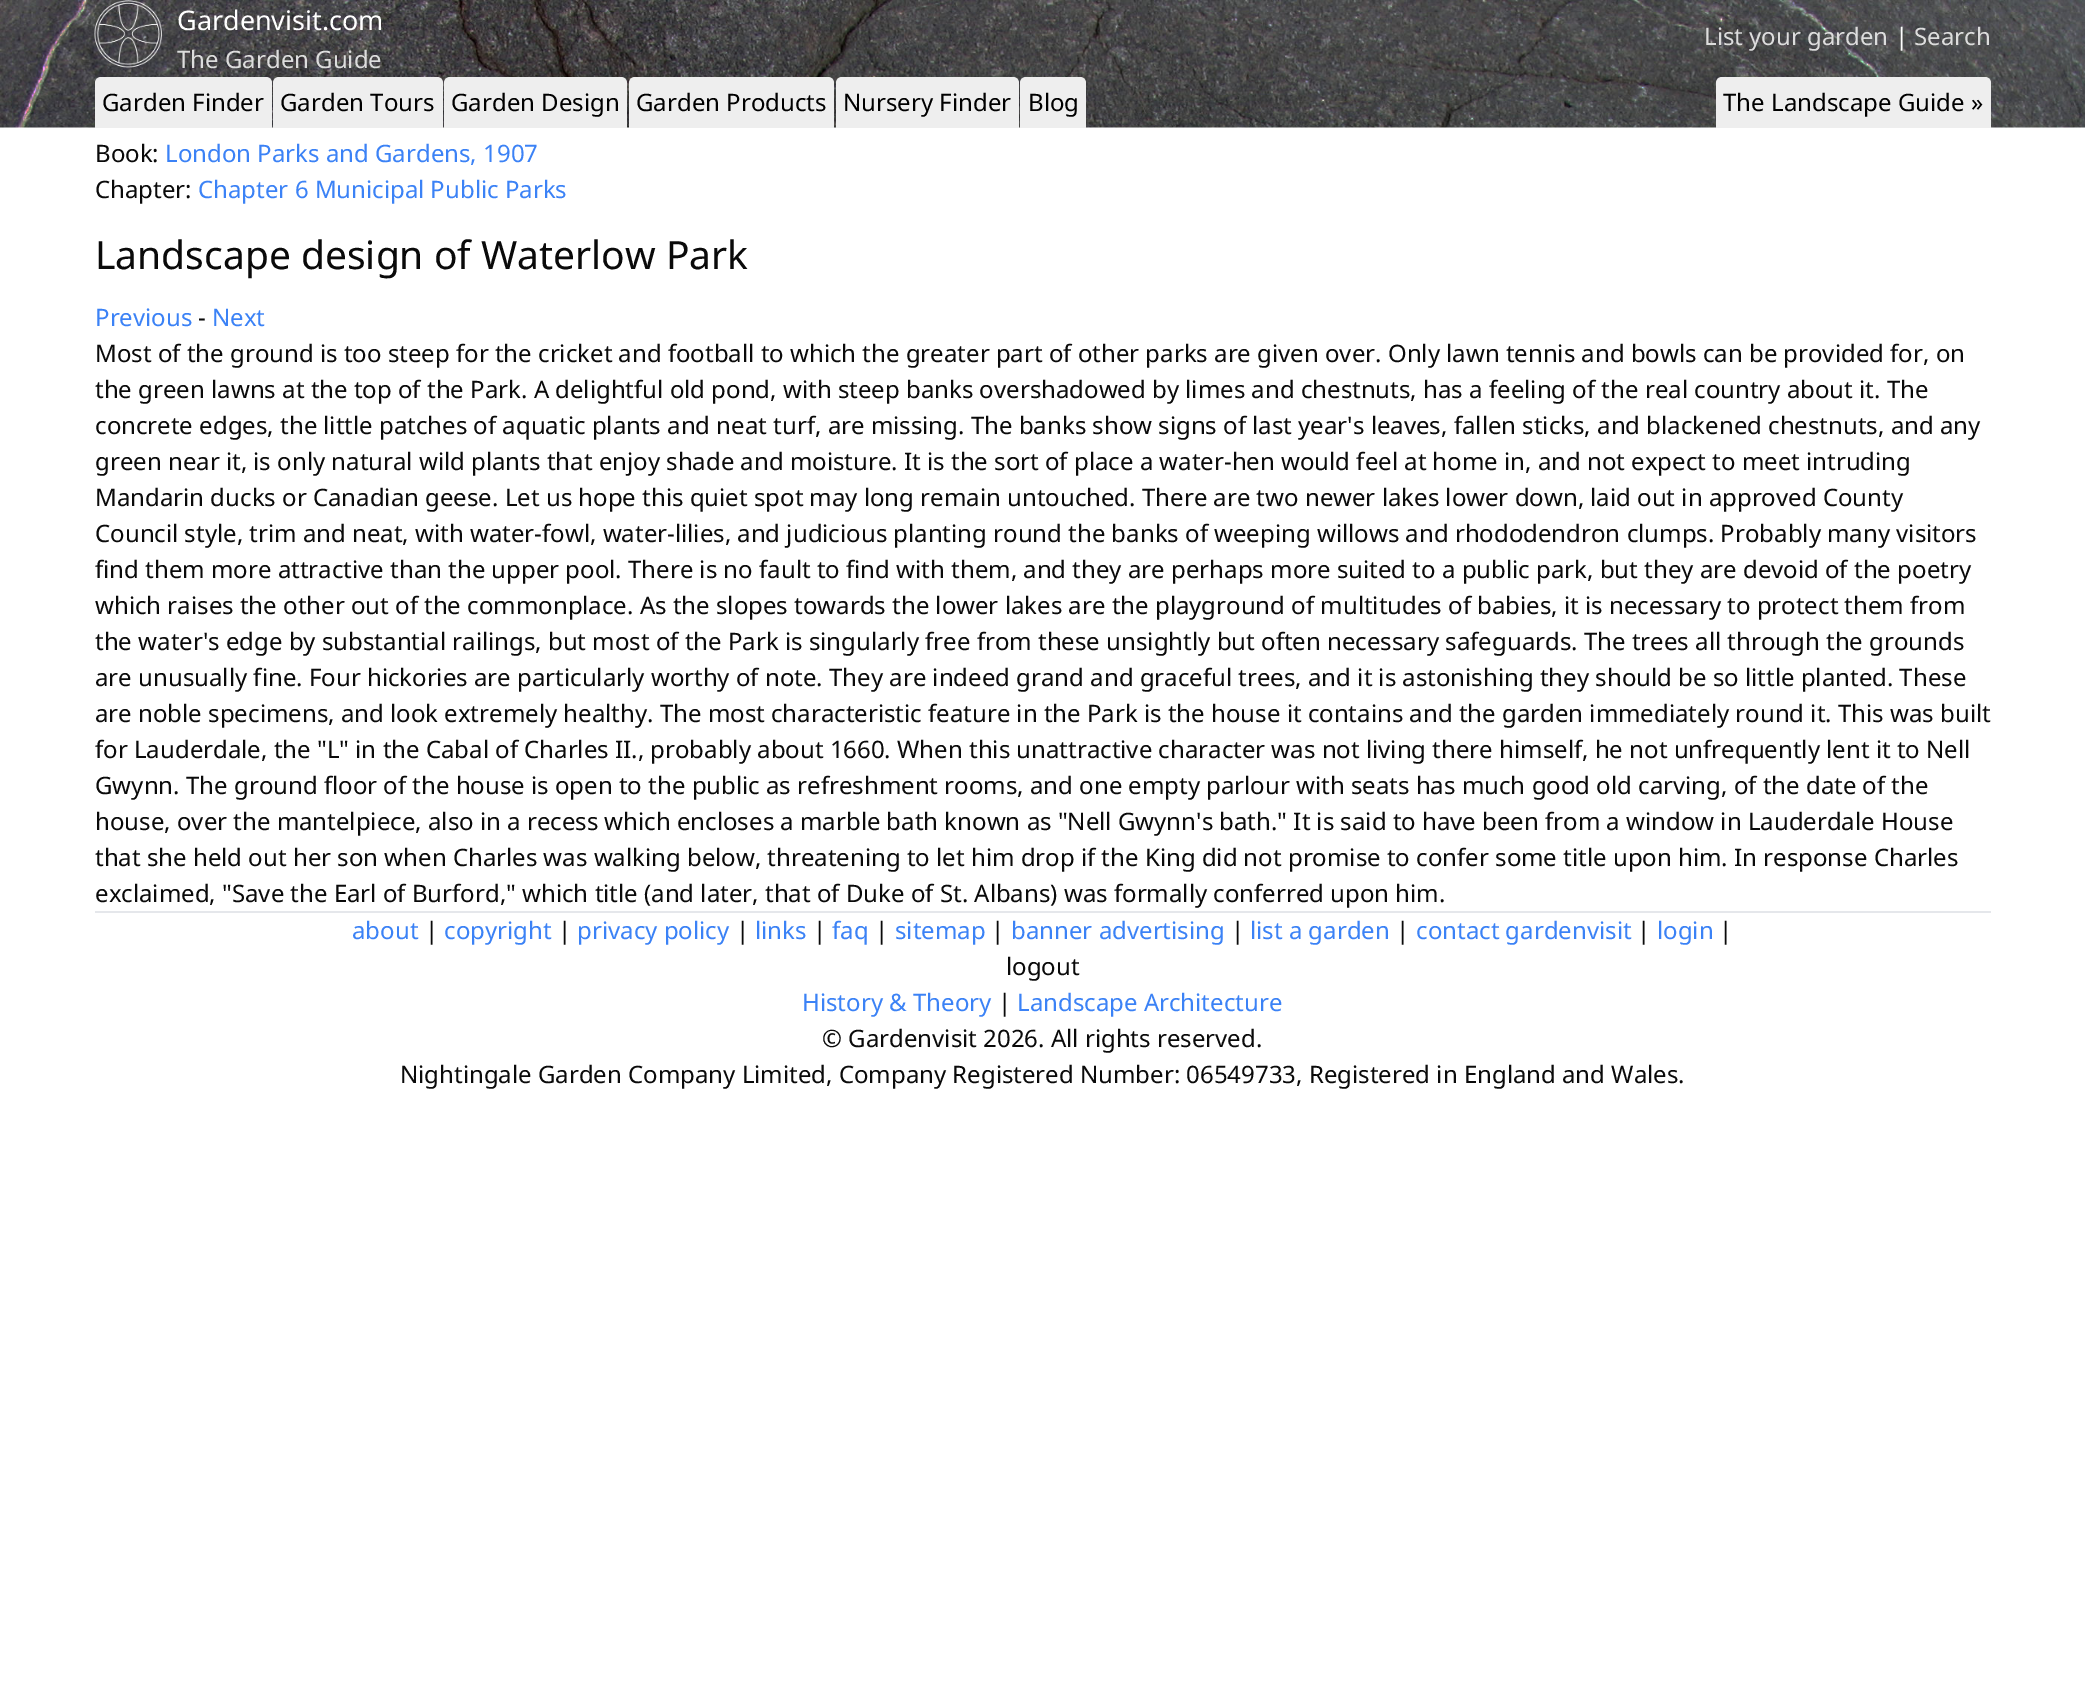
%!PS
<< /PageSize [2085 1684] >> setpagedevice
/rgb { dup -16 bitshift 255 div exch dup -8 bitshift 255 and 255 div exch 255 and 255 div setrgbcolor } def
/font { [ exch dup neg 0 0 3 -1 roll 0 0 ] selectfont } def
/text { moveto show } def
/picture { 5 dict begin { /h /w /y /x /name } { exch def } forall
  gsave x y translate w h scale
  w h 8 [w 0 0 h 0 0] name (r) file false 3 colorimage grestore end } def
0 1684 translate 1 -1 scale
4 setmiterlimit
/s1 { /NotoSans-Regular 27 font 16#FFFFFF rgb } def
/s2 { /NotoSans-Regular 24 font 16#DDDDDD rgb } def
/s3 { /NotoSans-Regular 24 font 16#FFFFFF rgb } def
/s4 { /NotoSans-Regular 24 font 16#000000 rgb } def
/s5 { /NotoSans-Regular 24 font 16#0A0A0A rgb } def
/s6 { /NotoSans-Regular 24 font 16#3B82F6 rgb } def
/s7 { /NotoSans-Regular 39 font 16#0A0A0A rgb } def
16#FFFFFF rgb
0 0 2085 1684 rectfill
(pic1.raw) 0 0 2085 128 picture
(pic2.raw) 94 0 68 68 picture
s1
(Gardenvisit.com) 177 30 text
s2
(The Garden Guide) 177 68 text
(List your garden) 1704 45 text
s3
(|) 1895 45 text
s2
(Search) 1914 45 text
16#EEEEEE rgb
101 77 moveto 266 77 lineto 269.5 77 272 79.5 272 83 curveto 272 128 lineto 95 128 lineto 95 83 lineto 95 79.5 97.5 77 101 77 curveto closepath fill
s4
(Garden Finder) 102 111 text
16#EEEEEE rgb
279 77 moveto 437 77 lineto 440.5 77 443 79.5 443 83 curveto 443 128 lineto 273 128 lineto 273 83 lineto 273 79.5 275.5 77 279 77 curveto closepath fill
s4
(Garden Tours) 280 111 text
16#EEEEEE rgb
450 77 moveto 621 77 lineto 624.5 77 627 79.5 627 83 curveto 627 128 lineto 444 128 lineto 444 83 lineto 444 79.5 446.5 77 450 77 curveto closepath fill
s4
(Garden Design) 451 111 text
16#EEEEEE rgb
635 77 moveto 828 77 lineto 831.5 77 834 79.5 834 83 curveto 834 128 lineto 629 128 lineto 629 83 lineto 629 79.5 631.5 77 635 77 curveto closepath fill
s4
(Garden Products) 636 111 text
16#EEEEEE rgb
842 77 moveto 1013 77 lineto 1016.5 77 1019 79.5 1019 83 curveto 1019 128 lineto 836 128 lineto 836 83 lineto 836 79.5 838.5 77 842 77 curveto closepath fill
s4
(Nursery Finder) 843 111 text
16#EEEEEE rgb
1026 77 moveto 1080 77 lineto 1083.5 77 1086 79.5 1086 83 curveto 1086 128 lineto 1020 128 lineto 1020 83 lineto 1020 79.5 1022.5 77 1026 77 curveto closepath fill
s4
(Blog) 1028 111 text
16#EEEEEE rgb
1722 77 moveto 1985 77 lineto 1988.5 77 1991 79.5 1991 83 curveto 1991 128 lineto 1716 128 lineto 1716 83 lineto 1716 79.5 1718.5 77 1722 77 curveto closepath fill
s4
(The Landscape Guide ») 1723 111 text
s5
(Book:) 95 162 text
s6
(London Parks and Gardens, 1907) 165 162 text
s5
(Chapter:) 95 198 text
s6
(Chapter 6 Municipal Public Parks) 198 198 text
s7
(Landscape design of Waterlow Park) 95 269 text
s6
(Previous) 95 326 text
s5
(-) 198 326 text
s6
(Next) 212 326 text
s5
(Most of the ground is too steep for the cricket and football to which the greater part of other parks are given over. Only lawn tennis and bowls can be provided for, on) 95 362 text
(the green lawns at the top of the Park. A delightful old pond, with steep banks overshadowed by limes and chestnuts, has a feeling of the real country about it. The) 95 398 text
(concrete edges, the little patches of aquatic plants and neat turf, are missing. The banks show signs of last year's leaves, fallen sticks, and blackened chestnuts, and any) 95 434 text
(green near it, is only natural wild plants that enjoy shade and moisture. It is the sort of place a water-hen would feel at home in, and not expect to meet intruding) 95 470 text
(Mandarin ducks or Canadian geese. Let us hope this quiet spot may long remain untouched. There are two newer lakes lower down, laid out in approved County) 95 506 text
(Council style, trim and neat, with water-fowl, water-lilies, and judicious planting round the banks of weeping willows and rhododendron clumps. Probably many visitors) 95 542 text
(find them more attractive than the upper pool. There is no fault to find with them, and they are perhaps more suited to a public park, but they are devoid of the poetry) 95 578 text
(which raises the other out of the commonplace. As the slopes towards the lower lakes are the playground of multitudes of babies, it is necessary to protect them from) 95 614 text
(the water's edge by substantial railings, but most of the Park is singularly free from these unsightly but often necessary safeguards. The trees all through the grounds) 95 650 text
(are unusually fine. Four hickories are particularly worthy of note. They are indeed grand and graceful trees, and it is astonishing they should be so little planted. These) 95 686 text
(are noble specimens, and look extremely healthy. The most characteristic feature in the Park is the house it contains and the garden immediately round it. This was built) 95 722 text
(for Lauderdale, the "L" in the Cabal of Charles II., probably about 1660. When this unattractive character was not living there himself, he not unfrequently lent it to Nell) 95 758 text
(Gwynn. The ground floor of the house is open to the public as refreshment rooms, and one empty parlour with seats has much good old carving, of the date of the) 95 794 text
(house, over the mantelpiece, also in a recess which encloses a marble bath known as "Nell Gwynn's bath." It is said to have been from a window in Lauderdale House) 95 830 text
(that she held out her son when Charles was walking below, threatening to let him drop if the King did not promise to confer some title upon him. In response Charles) 95 866 text
(exclaimed, "Save the Earl of Burford," which title \(and later, that of Duke of St. Albans\) was formally conferred upon him.) 95 902 text
16#E5E7EB rgb
95 911 1896 2 rectfill
s6
(about) 352 939 text
s5
(|) 425 939 text
s6
(copyright) 444 939 text
s5
(|) 558 939 text
s6
(privacy policy) 577 939 text
s5
(|) 736 939 text
s6
(links) 755 939 text
s5
(|) 813 939 text
s6
(faq) 832 939 text
s5
(|) 875 939 text
s6
(sitemap) 895 939 text
s5
(|) 991 939 text
s6
(banner advertising) 1011 939 text
s5
(|) 1231 939 text
s6
(list a garden) 1250 939 text
s5
(|) 1396 939 text
s6
(contact gardenvisit) 1416 939 text
s5
(|) 1637 939 text
s6
(login) 1657 939 text
s5
(|) 1719 939 text
(logout) 1006 975 text
s6
(History & Theory) 802 1011 text
s5
(|) 998 1011 text
s6
(Landscape Architecture) 1017 1011 text
s5
(© Gardenvisit 2026. All rights reserved.) 822 1047 text
(Nightingale Garden Company Limited, Company Registered Number: 06549733, Registered in England and Wales.) 400 1083 text
showpage
